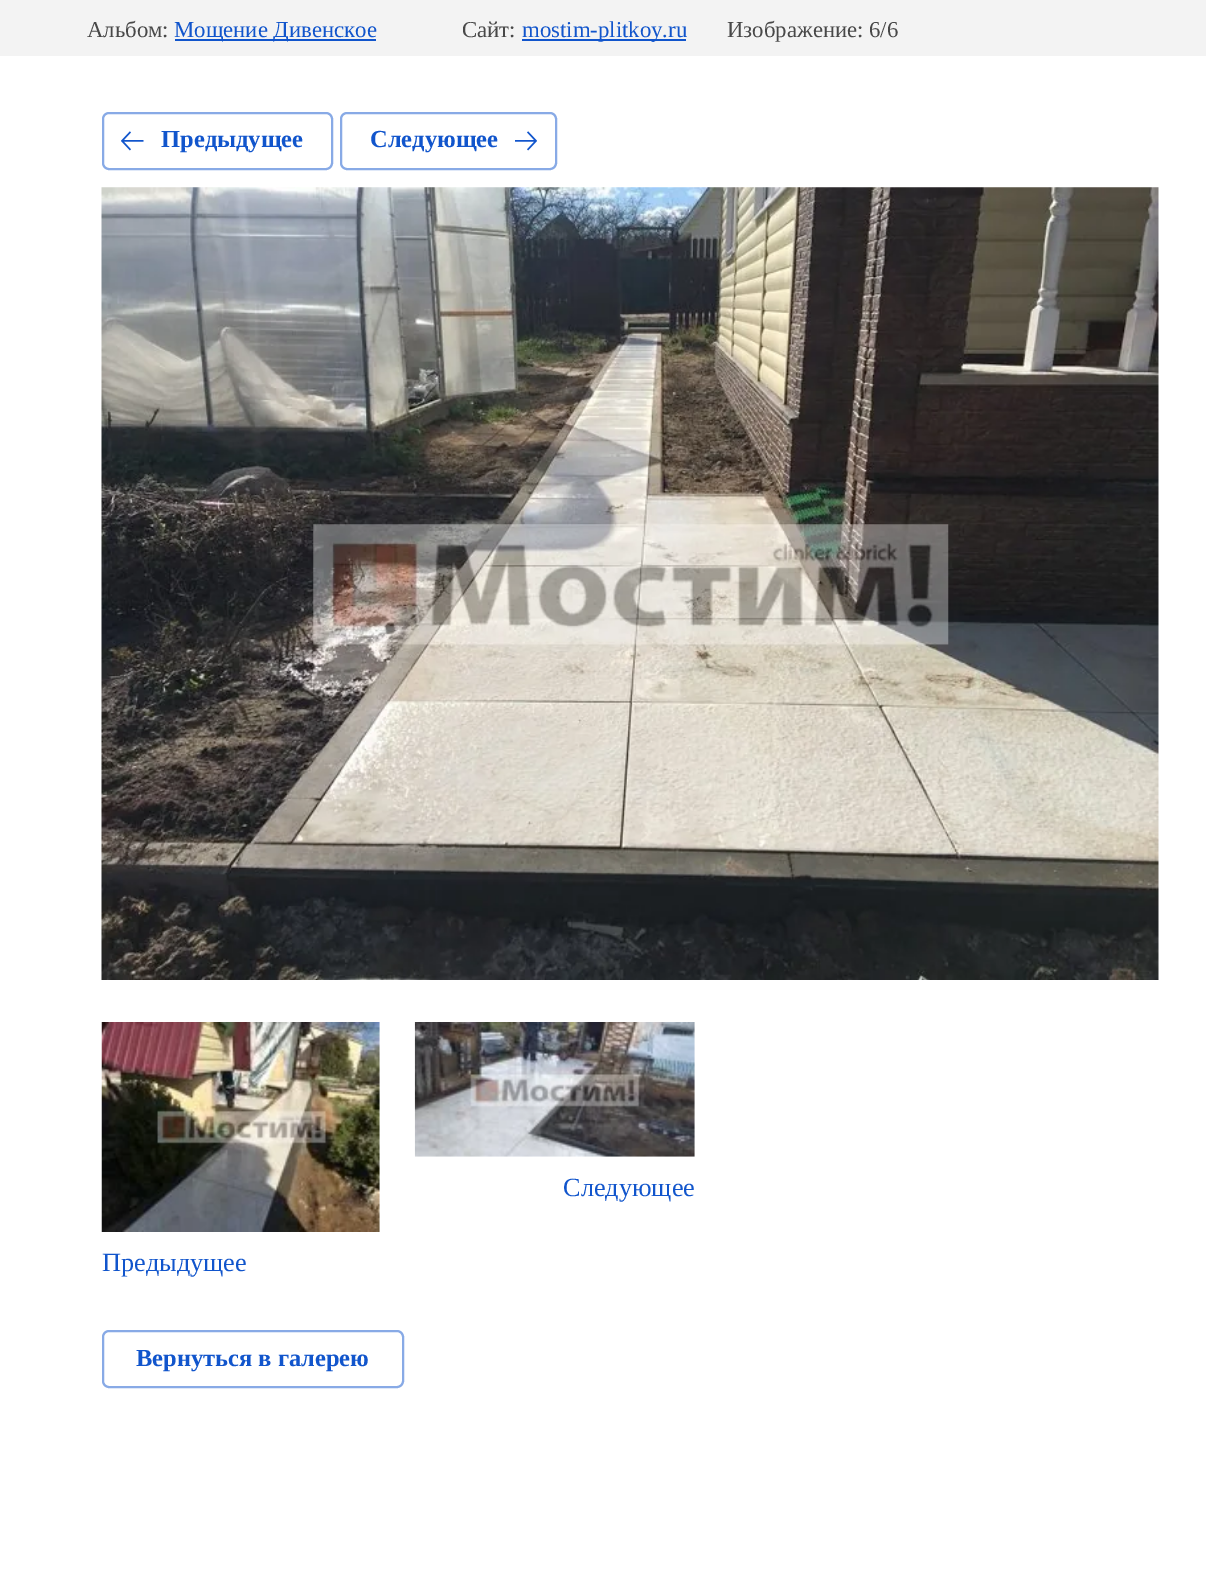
%!PS
<< /PageSize [1206 1577] >> setpagedevice
/rgb { dup -16 bitshift 255 div exch dup -8 bitshift 255 and 255 div exch 255 and 255 div setrgbcolor } def
/font { [ exch dup neg 0 0 3 -1 roll 0 0 ] selectfont } def
/text { moveto show } def
/roundrect { 5 dict begin { /r /h /w /y /x } { exch def } forall
  x r add y moveto x w add y 2 copy h add r arct x w add y h add x 1 index r arct
  x y h add x y r arct x y 2 copy exch w add exch r arct closepath end } def
/picture { 5 dict begin { /h /w /y /x /name } { exch def } forall
  gsave x y translate w h scale
  w h 8 [w 0 0 h 0 0] name (r) file false 3 colorimage grestore end } def
0 1577 translate 1 -1 scale
4 setmiterlimit
/s1 { /LiberationSerif-Regular 22.75 font 16#484848 rgb } def
/s2 { /LiberationSerif-Regular 22.75 font 16#1155CC rgb } def
/s3 { /LiberationSerif-Bold 24.5 font 16#1155CC rgb } def
/s4 { /LiberationSerif-Regular 26.25 font 16#1155CC rgb } def
16#FFFFFF rgb
0 0 1206 1577 rectfill
16#F3F3F3 rgb
0 0 1206 56 rectfill
s1
(Альбом:) 87 37 text
16#1155CC rgb
175 39 201 2 rectfill
(Мощение Дивенское) 174 37 text
s1
(Сайт:) 462 37 text
16#1155CC rgb
522 39 164 2 rectfill
(mostim-plitkoy.ru) 522 37 text
s1
(Изображение: 6/6) 727 37 text
16#88AAE6 rgb
2 setlinewidth
103 113 229 56 6 roundrect stroke
(pic1.raw) 121 131 23 20 picture
s3
(Предыдущее) 161 147 text
16#88AAE6 rgb
341 113 215 56 6 roundrect stroke
s3
(Следующее) 370 147 text
(pic2.raw) 515 131 22 20 picture
(pic3.raw) 101 187 1058 793 picture
(pic4.raw) 414 1022 281 135 picture
s4
(Следующее) 563 1196 text
(pic5.raw) 101 1022 279 210 picture
(Предыдущее) 102 1271 text
16#88AAE6 rgb
103 1331 300 56 6 roundrect stroke
s3
(Вернуться в галерею) 136 1366 text
showpage
